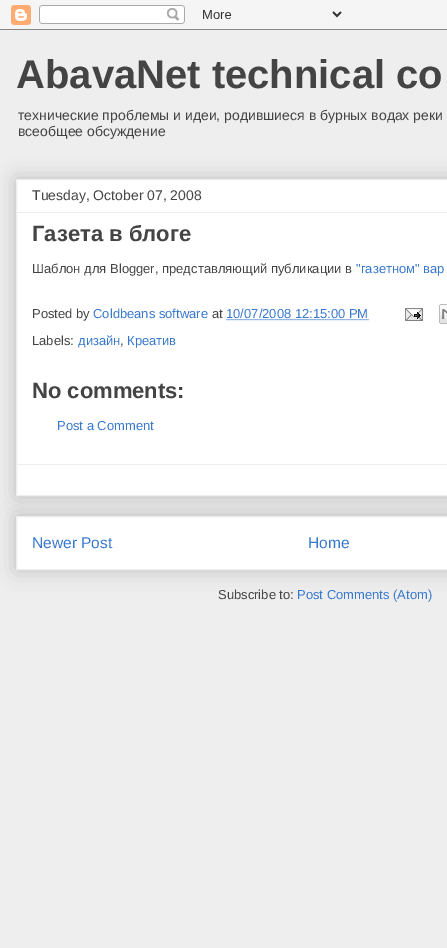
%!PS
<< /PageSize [447 948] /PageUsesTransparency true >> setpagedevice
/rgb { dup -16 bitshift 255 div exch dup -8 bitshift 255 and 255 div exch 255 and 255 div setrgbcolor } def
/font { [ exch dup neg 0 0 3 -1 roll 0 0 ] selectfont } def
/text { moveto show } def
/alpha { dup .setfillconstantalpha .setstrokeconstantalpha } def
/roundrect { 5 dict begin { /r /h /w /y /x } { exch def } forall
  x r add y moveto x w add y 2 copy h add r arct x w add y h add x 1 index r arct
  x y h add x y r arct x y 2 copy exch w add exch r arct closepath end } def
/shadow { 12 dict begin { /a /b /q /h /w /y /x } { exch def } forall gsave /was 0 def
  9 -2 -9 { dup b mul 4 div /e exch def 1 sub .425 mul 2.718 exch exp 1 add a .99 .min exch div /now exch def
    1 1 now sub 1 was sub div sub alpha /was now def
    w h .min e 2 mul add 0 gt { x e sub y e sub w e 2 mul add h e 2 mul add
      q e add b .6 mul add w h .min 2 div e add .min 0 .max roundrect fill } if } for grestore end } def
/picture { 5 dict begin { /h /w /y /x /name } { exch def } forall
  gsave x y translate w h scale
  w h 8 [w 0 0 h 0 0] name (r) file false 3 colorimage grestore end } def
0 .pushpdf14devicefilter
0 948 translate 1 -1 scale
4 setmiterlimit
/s1 { /LiberationSans-Bold 40 font 16#444444 rgb } def
/s2 { /LiberationSans-Regular 14 font 16#444444 rgb } def
/s3 { /LiberationSans-Bold 22 font 16#444444 rgb } def
/s4 { /LiberationSans-Regular 13 font 16#444444 rgb } def
/s5 { /LiberationSans-Regular 13 font 16#3778CD rgb } def
/s6 { /LiberationSans-Regular 15.5 font 16#3778CD rgb } def
16#EEEEEE rgb
0 0 447 948 rectfill
(pic1.raw) 0 0 447 30 picture
s1
(AbavaNet technical co) 16 88 text
s2
(технические проблемы и идеи, родившиеся в бурных водах реки) 18 120 text
(всеобщее обсуждение) 18 136 text
16#000000 rgb
16 516 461 54 0 10 0.2 shadow
16#FFFFFF rgb
16.5 516.5 moveto 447.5 516.5 lineto 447.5 569.5 lineto 16.5 569.5 lineto closepath gsave fill grestore
16#EEEEEE rgb
stroke
16#000000 rgb
16 179 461 317 0 10 0.2 shadow
16#FFFFFF rgb
16.5 179.5 moveto 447.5 179.5 lineto 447.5 495.5 lineto 16.5 495.5 lineto closepath gsave fill grestore
16#EEEEEE rgb
stroke
s2
(Tuesday, October 07, 2008) 32 200 text
16#EEEEEE rgb
17 212 430 1 rectfill
s3
(Газета в блоге) 32 241 text
s4
(Шаблон для Blogger, представляющий публикации в) 32 273 text
s5
("газетном" вар) 356 273 text
s4
(Posted by) 32 318 text
s5
(Coldbeans software) 93 318 text
s4
(at) 212 318 text
s5
(10/07/2008 12:15:00 PM) 226 318 text
[1 1] 0 setdash
226.5 319.5 moveto 369 319.5 lineto stroke
(pic2.raw) 405 308 18 13 picture
(pic3.raw) 439 304 8 20 picture
s4
(Labels:) 32 345 text
s5
(дизайн) 78 345 text
s4
(,) 120 345 text
s5
(Креатив) 127 345 text
s3
(No comments:) 32 398 text
s5
(Post a Comment) 57 430 text
16#EEEEEE rgb
17 464 430 1 rectfill
s6
(Newer Post) 32 548 text
(Home) 308 548 text
s4
(Subscribe to:) 218 599 text
s5
(Post Comments \(Atom\)) 297 599 text
.poppdf14devicefilter showpage
